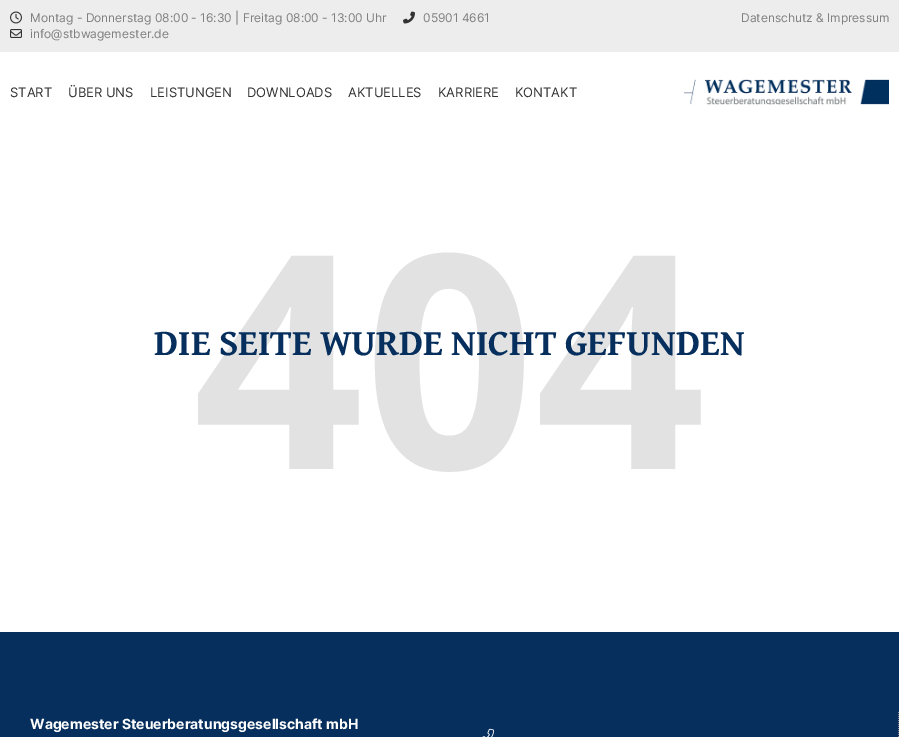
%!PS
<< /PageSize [899 737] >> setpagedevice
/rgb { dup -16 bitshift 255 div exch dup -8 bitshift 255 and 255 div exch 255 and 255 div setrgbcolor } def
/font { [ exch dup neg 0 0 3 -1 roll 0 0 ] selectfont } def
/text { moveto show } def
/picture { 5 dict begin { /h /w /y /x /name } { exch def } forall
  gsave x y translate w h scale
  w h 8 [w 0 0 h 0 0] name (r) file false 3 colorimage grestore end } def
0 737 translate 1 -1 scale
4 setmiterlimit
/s1 { /Inter-Regular 12 font 16#808080 rgb } def
/s2 { /Inter-Regular 13 font 16#333333 rgb } def
/s3 { /OpenSans-Bold 299 font 16#E2E2E2 rgb } def
/s4 { /GentiumBookPlus-Bold 37 font 16#062F5D rgb } def
/s5 { /Inter-Bold 14 font 16#FFFFFF rgb } def
16#FFFFFF rgb
0 0 899 737 rectfill
16#EDEDED rgb
0 0 899 52 rectfill
(pic1.raw) 10 11 12 13 picture
s1
(Montag - Donnerstag 08:00 - 16:30 | Freitag 08:00 - 13:00 Uhr) 30 22 text
(pic2.raw) 403 11 12 13 picture
(05901 4661) 423 22 text
(pic3.raw) 10 29 12 9 picture
(info@stbwagemester.de) 30 38 text
(Datenschutz & Impressum) 741 22 text
s2
(START) 10 97 text
(ÜBER UNS) 68 97 text
(LEISTUNGEN) 150 97 text
(DOWNLOADS) 247 97 text
(AKTUELLES) 348 97 text
(KARRIERE) 438 97 text
(KONTAKT) 515 97 text
(pic4.raw) 684 79 205 26 picture
s3
(404) 193 469 text
s4
(DIE SEITE WURDE NICHT GEFUNDEN) 154 355 text
0 632 899 105 rectfill
s5
(Wagemester Steuerberatungsgesellschaft mbH) 30 729 text
16#878787 rgb
[1 1] 0 setdash
898.5 712 moveto 898.5 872 lineto stroke
(pic5.raw) 482 728 12 9 picture
showpage
